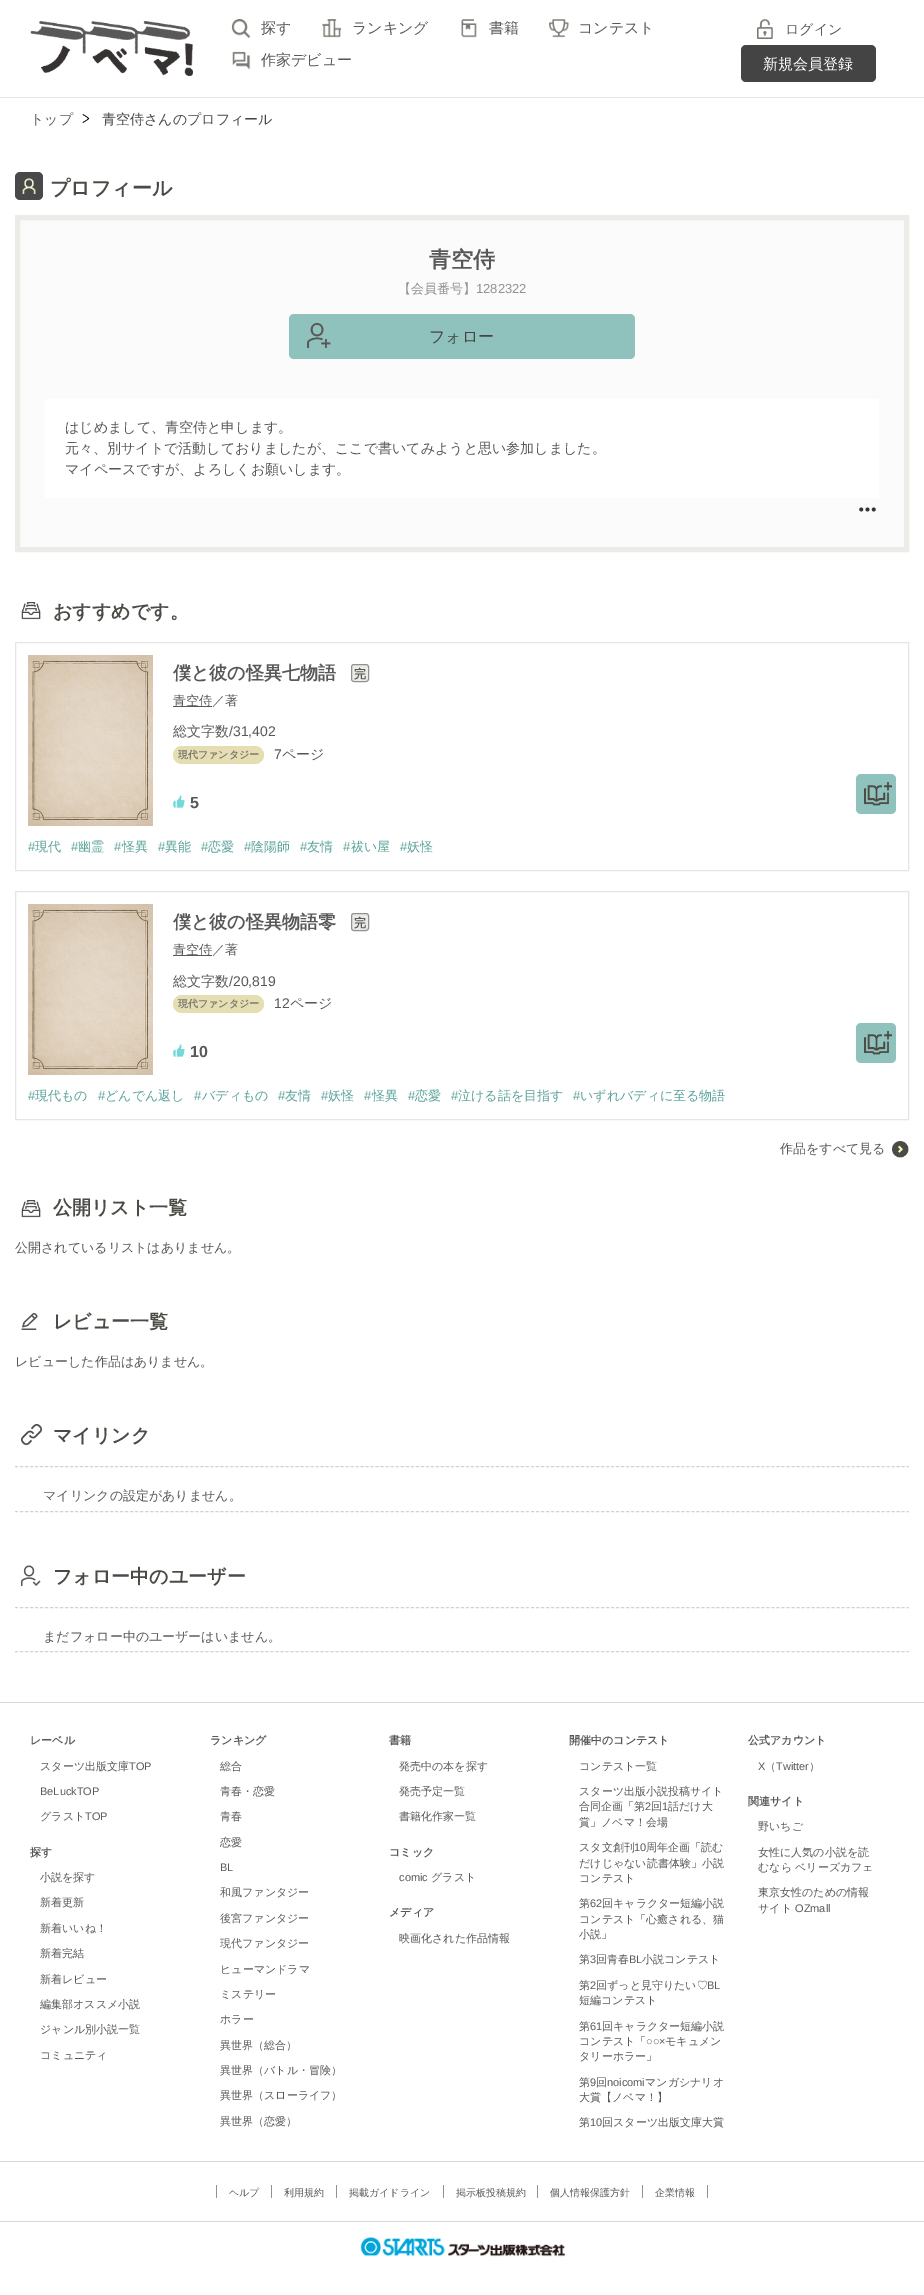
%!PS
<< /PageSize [924 2295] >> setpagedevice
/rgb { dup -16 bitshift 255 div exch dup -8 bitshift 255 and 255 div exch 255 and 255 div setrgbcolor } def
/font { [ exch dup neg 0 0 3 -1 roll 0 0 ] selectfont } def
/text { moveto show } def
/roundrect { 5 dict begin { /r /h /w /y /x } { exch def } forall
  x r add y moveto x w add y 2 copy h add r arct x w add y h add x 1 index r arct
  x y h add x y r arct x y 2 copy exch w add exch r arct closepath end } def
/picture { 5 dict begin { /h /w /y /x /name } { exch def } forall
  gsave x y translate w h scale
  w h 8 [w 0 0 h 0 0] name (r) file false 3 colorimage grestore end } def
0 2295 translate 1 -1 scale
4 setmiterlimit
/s1 { /WenQuanYiZenHei-Medium 15 font 16#595757 rgb } def
/s2 { /WenQuanYiZenHei-Medium 14 font 16#595757 rgb } def
/s3 { /WenQuanYiZenHei-Medium 15 font 16#FFFFFF rgb } def
/s4 { /WenQuanYiZenHei-Medium 14 font 16#444444 rgb } def
/s5 { /WenQuanYiZenHei-Bold 20 font 16#4B4A45 rgb } def
/s6 { /WenQuanYiZenHei-Bold 22 font 16#595757 rgb } def
/s7 { /WenQuanYiZenHei-Medium 13 font 16#929292 rgb } def
/s8 { /LiberationSans-Regular 13 font 16#929292 rgb } def
/s9 { /WenQuanYiZenHei-Medium 16 font 16#444444 rgb } def
/s10 { /WenQuanYiZenHei-Bold 19 font 16#4B4A45 rgb } def
/s11 { /WenQuanYiZenHei-Bold 18 font 16#595757 rgb } def
/s12 { /WenQuanYiZenHei-Bold 12 font 16#595757 rgb } def
/s13 { /WenQuanYiZenHei-Medium 13 font 16#595757 rgb } def
/s14 { /LiberationSans-Regular 14 font 16#595757 rgb } def
/s15 { /WenQuanYiZenHei-Bold 10 font 16#787770 rgb } def
/s16 { /LiberationSans-Bold 16 font 16#595757 rgb } def
/s17 { /LiberationSans-Regular 13 font 16#59A39A rgb } def
/s18 { /WenQuanYiZenHei-Medium 13 font 16#59A39A rgb } def
/s19 { /WenQuanYiZenHei-Bold 11 font 16#595757 rgb } def
/s20 { /WenQuanYiZenHei-Medium 11 font 16#595757 rgb } def
/s21 { /LiberationSans-Regular 11 font 16#595757 rgb } def
/s22 { /WenQuanYiZenHei-Medium 10 font 16#595757 rgb } def
16#FFFFFF rgb
0 0 924 2295 rectfill
16#E5E5E5 rgb
0 97 924 1 rectfill
(pic1.raw) 30 21 163 55 picture
(pic2.raw) 231 19 20 19 picture
s1
(探す) 261 33 text
(pic3.raw) 322 19 20 19 picture
(ランキング) 352 33 text
(pic4.raw) 461 19 16 19 picture
(書籍) 489 33 text
(pic5.raw) 549 19 20 19 picture
(コンテスト) 578 33 text
(pic6.raw) 232 51 19 19 picture
(作家デビュー) 261 65 text
(pic7.raw) 757 19 16 20 picture
s2
(ログイン) 785 34 text
16#444444 rgb
741 45 135 37 5 roundrect fill
s3
(新規会員登録) 763 69 text
s2
(トップ) 30 124 text
16#000000 rgb
0.6 setlinewidth
1 setlinecap
1 setlinejoin
83 122.5 moveto 90.5 117.5 90.5 119.5 83 114.5 curveto stroke
s4
(青空侍さんのプロフィール) 102 124 text
16#494949 rgb
15 172 28 28 5 roundrect fill
(pic8.raw) 22 178 14 16 picture
s5
(プロフィール) 50 195 text
16#FBFBFB rgb
17.5 217.5 moveto 906.5 217.5 lineto 906.5 549.5 lineto 17.5 549.5 lineto closepath gsave fill grestore
16#EBEBE8 rgb
5 setlinewidth
0 setlinecap
0 setlinejoin
stroke
s6
(青空侍) 429 267 text
s7
(【会員番号】) 398 293 text
s8
(1282322) 476 293 text
16#8FC2BC rgb
289 314 346 45 5 roundrect fill
(pic9.raw) 307 323 24 25 picture
s9
(フォロー) 429 342 text
16#FFFFFF rgb
45 399 834 99 rectfill
s2
(はじめまして、青空侍と申します。) 65 432 text
(元々、別サイトで活動しておりましたが、ここで書いてみようと思い参加しました。) 65 453 text
(マイペースですが、よろしくお願いします。) 65 474 text
(pic10.raw) 859 507 17 5 picture
(pic11.raw) 21 602 20 18 picture
s10
(おすすめです。) 53 618 text
16#E5E5E5 rgb
1 setlinewidth
15.5 642.5 893 228 rectstroke
(pic12.raw) 28 655 125 171 picture
s11
(僕と彼の怪異七物語) 173 679 text
16#EBEBE8 rgb
351.5 664.5 17 17 2.5 roundrect gsave fill grestore
16#929292 rgb
stroke
s12
(完) 354 678 text
173 706 39 1 rectfill
s13
(青空侍／著) 173 705 text
s2
(総文字数) 173 736 text
s14
(/31,402) 229 736 text
16#E6DEB3 rgb
173 746 91 18 9 roundrect fill
s15
(現代ファンタジー) 178 758 text
s14
(7) 274 759 text
s2
(ページ) 282 759 text
(pic13.raw) 173 795 12 13 picture
s16
(5) 190 808 text
16#8FC2BC rgb
856 774 40 40 5 roundrect fill
(pic14.raw) 864 782 28 24 picture
s17
(#) 28 851 text
s18
(現代) 35 851 text
s17
(#) 71 851 text
s18
(幽霊) 78 851 text
s17
(#) 114 851 text
s18
(怪異) 122 851 text
s17
(#) 158 851 text
s18
(異能) 165 851 text
s17
(#) 201 851 text
s18
(恋愛) 208 851 text
s17
(#) 244 851 text
s18
(陰陽師) 251 851 text
s17
(#) 300 851 text
s18
(友情) 307 851 text
s17
(#) 343 851 text
s18
(祓い屋) 351 851 text
s17
(#) 400 851 text
s18
(妖怪) 407 851 text
16#E5E5E5 rgb
15.5 891.5 893 228 rectstroke
(pic12.raw) 28 904 125 171 picture
s11
(僕と彼の怪異物語零) 173 928 text
16#EBEBE8 rgb
351.5 913.5 17 17 2.5 roundrect gsave fill grestore
16#929292 rgb
stroke
s12
(完) 354 927 text
173 955 39 1 rectfill
s13
(青空侍／著) 173 954 text
s2
(総文字数) 173 986 text
s14
(/20,819) 229 986 text
16#E6DEB3 rgb
173 995 91 18 9 roundrect fill
s15
(現代ファンタジー) 178 1007 text
s14
(12) 274 1008 text
s2
(ページ) 290 1008 text
(pic13.raw) 173 1044 12 13 picture
s16
(10) 190 1057 text
16#8FC2BC rgb
856 1023 40 40 5 roundrect fill
(pic15.raw) 864 1031 28 24 picture
s17
(#) 28 1100 text
s18
(現代もの) 35 1100 text
s17
(#) 98 1100 text
s18
(どんでん返し) 105 1100 text
s17
(#) 194 1100 text
s18
(バディもの) 202 1100 text
s17
(#) 278 1100 text
s18
(友情) 285 1100 text
s17
(#) 321 1100 text
s18
(妖怪) 328 1100 text
s17
(#) 364 1100 text
s18
(怪異) 372 1100 text
s17
(#) 408 1100 text
s18
(恋愛) 415 1100 text
s17
(#) 451 1100 text
s18
(泣ける話を目指す) 458 1100 text
s17
(#) 573 1100 text
s18
(いずれバディに至る物語) 580 1100 text
s13
(作品をすべて見る) 780 1153 text
(pic16.raw) 892 1141 17 17 picture
(pic11.raw) 21 1200 20 18 picture
s10
(公開リスト一覧) 53 1214 text
s13
(公開されているリストはありません。) 15 1252 text
(pic17.raw) 21 1313 17 17 picture
s10
(レビュー一覧) 53 1328 text
s13
(レビューした作品はありません。) 15 1366 text
(pic18.raw) 21 1424 21 21 picture
s10
(マイリンク) 53 1442 text
16#D2D2D2 rgb
[3 2.01] 0 setdash
15 1466.5 moveto 909 1466.5 lineto stroke
15 1511.5 moveto 909 1511.5 lineto stroke
s13
(マイリンクの設定がありません。) 43 1500 text
(pic19.raw) 21 1565 20 21 picture
s10
(フォロー中のユーザー) 53 1583 text
16#D2D2D2 rgb
15 1607.5 moveto 909 1607.5 lineto stroke
15 1651.5 moveto 909 1651.5 lineto stroke
s13
(まだフォロー中のユーザーはいません。) 43 1641 text
16#D8D7D1 rgb
0 1702 924 1 rectfill
s19
(レーベル) 30 1744 text
s20
(スターツ出版文庫) 40 1770 text
s21
(TOP) 129 1770 text
(BeLuckTOP) 40 1795 text
s20
(グラスト) 40 1820 text
s21
(TOP) 85 1820 text
s19
(探す) 30 1856 text
s20
(小説を探す) 40 1881 text
(新着更新) 40 1906 text
(新着いいね！) 40 1932 text
(新着完結) 40 1957 text
(新着レビュー) 40 1983 text
(編集部オススメ小説) 40 2008 text
(ジャンル別小説一覧) 40 2033 text
(コミュニティ) 40 2059 text
s19
(ランキング) 210 1744 text
s20
(総合) 220 1770 text
(青春・恋愛) 220 1795 text
(青春) 220 1820 text
(恋愛) 220 1846 text
s21
(BL) 220 1871 text
s20
(和風ファンタジー) 220 1896 text
(後宮ファンタジー) 220 1922 text
(現代ファンタジー) 220 1947 text
(ヒューマンドラマ) 220 1973 text
(ミステリー) 220 1998 text
(ホラー) 220 2023 text
(異世界（総合）) 220 2049 text
(異世界（バトル・冒険）) 220 2074 text
(異世界（スローライフ）) 220 2099 text
(異世界（恋愛）) 220 2125 text
s19
(書籍) 389 1744 text
s20
(発売中の本を探す) 399 1770 text
(発売予定一覧) 399 1795 text
(書籍化作家一覧) 399 1820 text
s19
(コミック) 389 1856 text
s21
(comic) 399 1881 text
s20
(グラスト) 431 1881 text
s19
(メディア) 389 1916 text
s20
(映画化された作品情報) 399 1942 text
s19
(開催中のコンテスト) 569 1744 text
s20
(コンテスト一覧) 579 1770 text
(スターツ出版小説投稿サイト) 579 1795 text
(合同企画「第) 579 1810 text
s21
(2) 645 1810 text
s20
(回) 651 1810 text
s21
(1) 662 1810 text
s20
(話だけ大) 668 1810 text
(賞」ノベマ！会場) 579 1826 text
(スタ文創刊) 579 1851 text
s21
(10) 634 1851 text
s20
(周年企画「読む) 646 1851 text
(だけじゃない読書体験」小説) 579 1867 text
(コンテスト) 579 1882 text
(第) 579 1907 text
s21
(62) 590 1907 text
s20
(回キャラクター短編小説) 602 1907 text
(コンテスト「心癒される、猫) 579 1923 text
(小説」) 579 1938 text
(第) 579 1963 text
s21
(3) 590 1963 text
s20
(回青春) 596 1963 text
s21
(BL) 629 1963 text
s20
(小説コンテスト) 642 1963 text
(第) 579 1989 text
s21
(2) 590 1989 text
s20
(回ずっと見守りたい♡) 596 1989 text
s21
(BL) 707 1989 text
s20
(短編コンテスト) 579 2004 text
(第) 579 2030 text
s21
(61) 590 2030 text
s20
(回キャラクター短編小説) 602 2030 text
(コンテスト「) 579 2045 text
s21
(○○×) 646 2045 text
s20
(モキュメン) 665 2045 text
(タリーホラー」) 579 2060 text
(第) 579 2086 text
s21
(9) 590 2086 text
s20
(回) 596 2086 text
s21
(noicomi) 607 2086 text
s20
(マンガシナリオ) 645 2086 text
(大賞【ノベマ！】) 579 2101 text
(第) 579 2126 text
s21
(10) 590 2126 text
s20
(回スターツ出版文庫大賞) 602 2126 text
s19
(公式アカウント) 748 1744 text
s21
(X) 758 1770 text
s20
(（) 765 1770 text
s21
(Twitter) 776 1770 text
s20
(）) 809 1770 text
s19
(関連サイト) 748 1805 text
s20
(野いちご) 758 1830 text
(女性に人気の小説を読) 758 1856 text
(むなら ベリーズカフェ) 758 1871 text
(東京女性のための情報) 758 1896 text
(サイト) 758 1912 text
s21
(OZmall) 795 1912 text
16#D8D7D1 rgb
0 2161 924 1 rectfill
16#929292 rgb
271 2185 1 13 rectfill
216 2185 1 13 rectfill
s22
(ヘルプ) 229 2196 text
16#929292 rgb
336 2185 1 13 rectfill
s22
(利用規約) 284 2196 text
16#929292 rgb
443 2185 1 13 rectfill
s22
(掲載ガイドライン) 349 2196 text
16#929292 rgb
537 2185 1 13 rectfill
s22
(掲示板投稿規約) 456 2196 text
16#929292 rgb
642 2185 1 13 rectfill
s22
(個人情報保護方針) 550 2196 text
16#929292 rgb
707 2185 1 13 rectfill
s22
(企業情報) 655 2196 text
16#D8D7D1 rgb
0 2221 924 1 rectfill
(pic20.raw) 360 2237 205 20 picture
showpage
